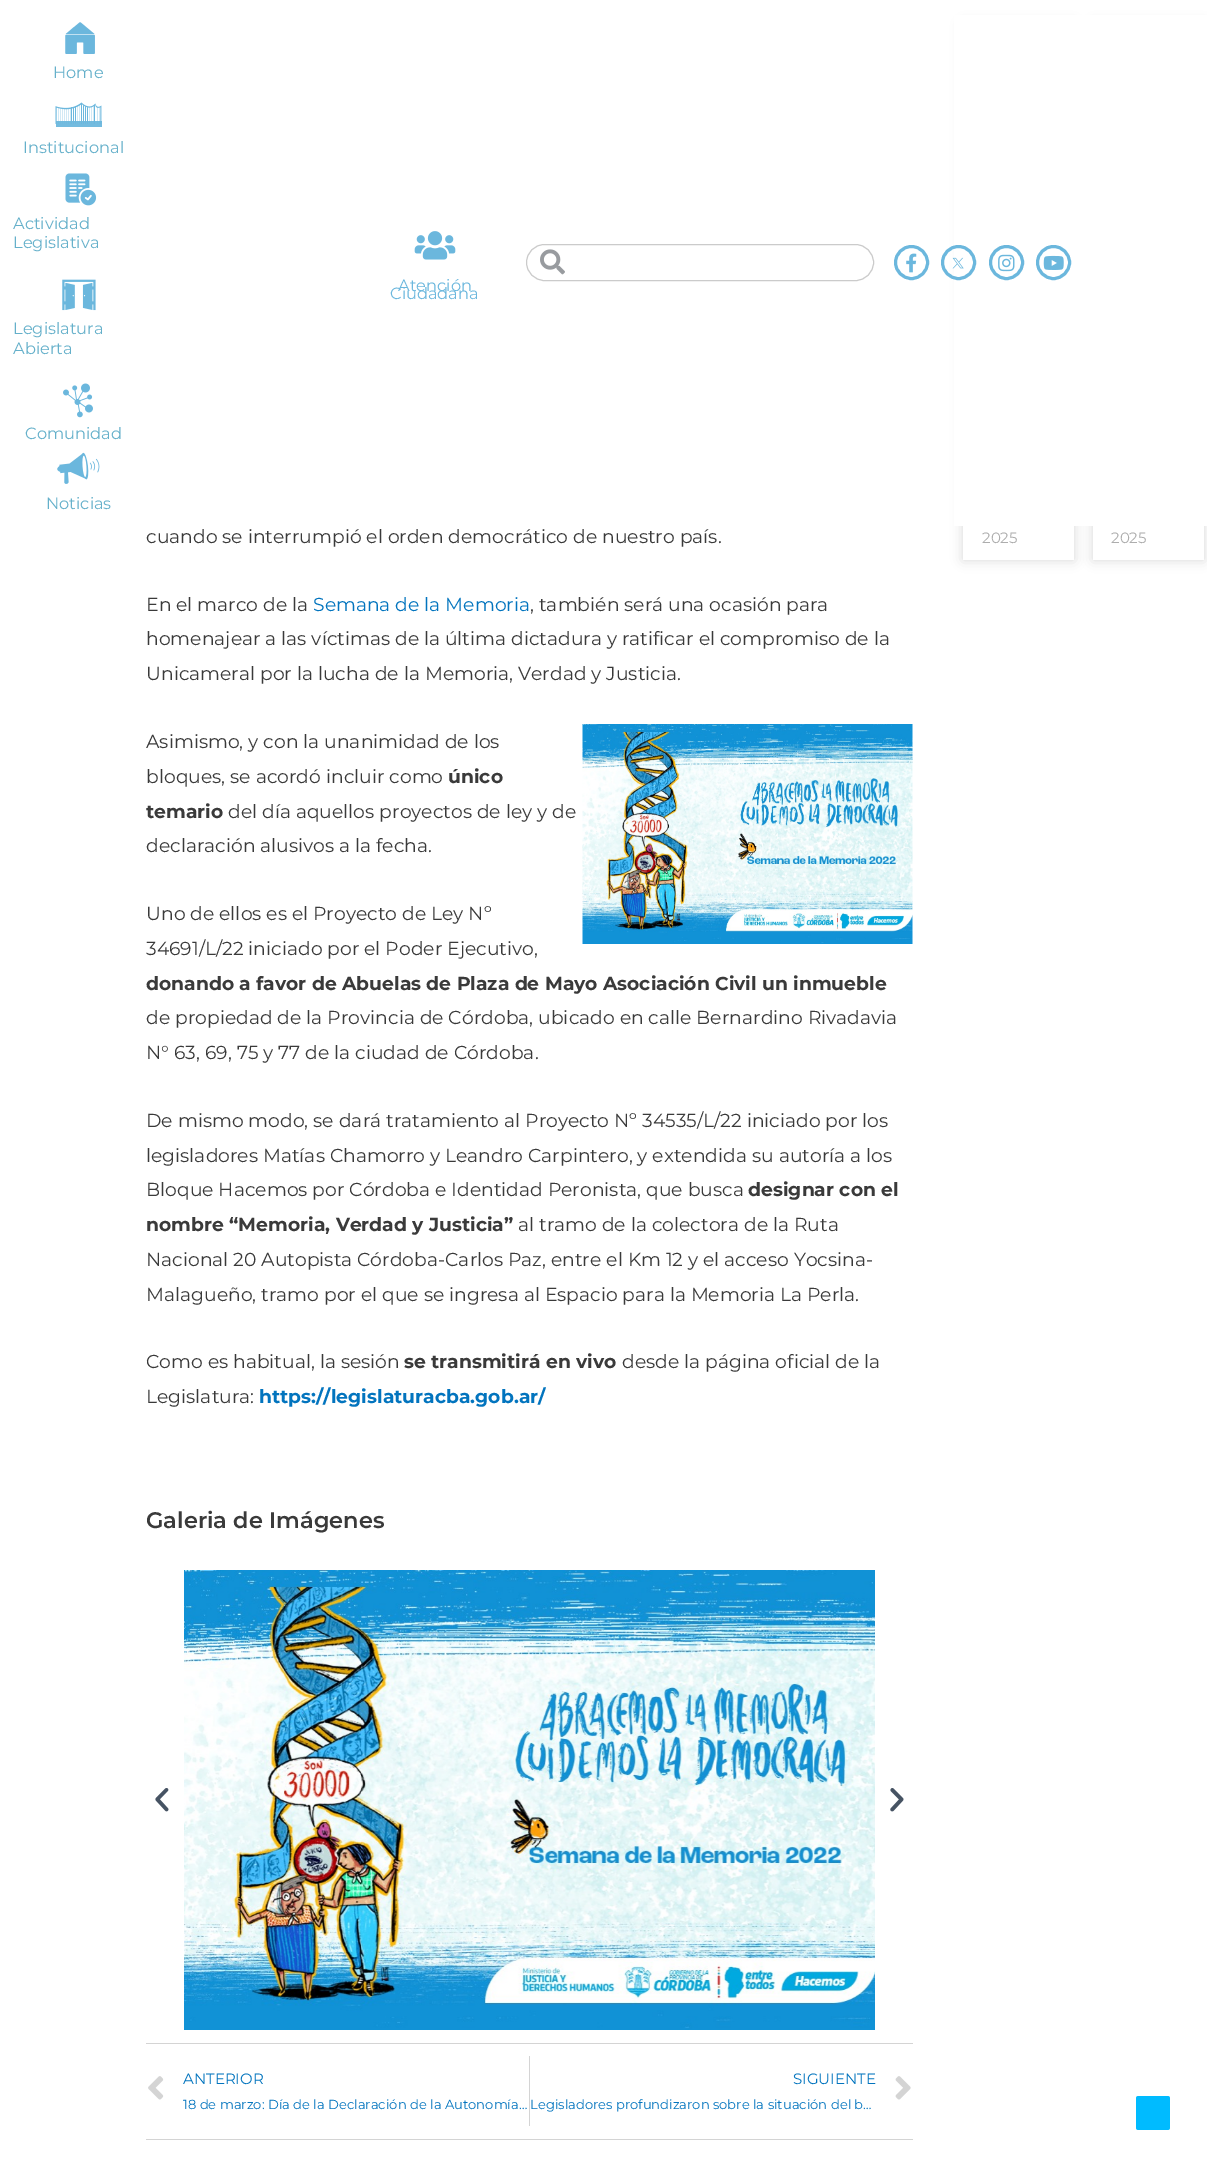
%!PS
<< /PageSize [1207 2167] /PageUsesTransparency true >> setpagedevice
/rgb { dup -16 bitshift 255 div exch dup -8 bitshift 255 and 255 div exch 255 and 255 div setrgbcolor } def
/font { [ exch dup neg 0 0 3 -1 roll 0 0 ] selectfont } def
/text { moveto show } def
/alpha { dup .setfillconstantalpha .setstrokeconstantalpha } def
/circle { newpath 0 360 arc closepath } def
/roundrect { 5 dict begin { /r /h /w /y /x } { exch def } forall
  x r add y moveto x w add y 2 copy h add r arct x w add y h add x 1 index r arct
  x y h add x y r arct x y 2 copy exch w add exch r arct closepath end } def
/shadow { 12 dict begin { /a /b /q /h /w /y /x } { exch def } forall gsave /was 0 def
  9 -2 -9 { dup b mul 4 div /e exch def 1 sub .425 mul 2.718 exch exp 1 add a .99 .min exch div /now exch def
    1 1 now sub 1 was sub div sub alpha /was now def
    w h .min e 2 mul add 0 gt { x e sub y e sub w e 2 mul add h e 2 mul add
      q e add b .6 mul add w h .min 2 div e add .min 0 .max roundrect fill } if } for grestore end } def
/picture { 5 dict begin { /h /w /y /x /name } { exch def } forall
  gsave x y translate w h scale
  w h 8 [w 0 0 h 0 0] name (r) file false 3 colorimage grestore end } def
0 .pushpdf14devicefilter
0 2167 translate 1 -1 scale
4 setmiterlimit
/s1 { /Montserrat-Regular 16.25 font 16#65B0CA rgb } def
/s2 { /Montserrat-Regular 16.25 font 16#6BB7DD rgb } def
/s3 { /Montserrat-Regular 18.75 font 16#3A3A3A rgb } def
/s4 { /Montserrat-Regular 18.75 font 16#0274BE rgb } def
/s5 { /Montserrat-Bold 18.75 font 16#3A3A3A rgb } def
/s6 { /Montserrat-Bold 18.75 font 16#0274BE rgb } def
/s7 { /Montserrat-SemiBold 22.5 font 16#3A3A3A rgb } def
/s8 { /Montserrat-Regular 15 font 16#0274BE rgb } def
/s9 { /Montserrat-Regular 13.1 font 16#0274BE rgb } def
/s10 { /Montserrat-Regular 15 font 16#ADADAD rgb } def
16#FFFFFF rgb
0 0 1207 2167 rectfill
16#000000 rgb
963 24 111 536 0 6 0.15 shadow
1093 24 111 536 0 6 0.15 shadow
16#FFFFFF rgb
954 15 253 511 rectfill
(pic1.raw) 65 22 30 32 picture
s1
(Home) 53 78 text
(pic2.raw) 55 102 47 25 picture
(Institucional) 23 153 text
(pic3.raw) 65 173 32 33 picture
(Actividad) 13 229 text
(Legislativa) 13 248 text
(pic4.raw) 62 279 34 32 picture
(Legislatura) 13 334 text
(Abierta) 13 354 text
(pic5.raw) 63 383 30 35 picture
(Comunidad) 25 439 text
(pic6.raw) 57 452 43 32 picture
(Noticias) 46 509 text
16#CBCBCB rgb
526.5 244.5 347 36 18 roundrect stroke
(pic7.raw) 540 249 25 26 picture
16#6BB7DD rgb
3 setlinewidth
911.5 262.5 16 circle stroke
(pic8.raw) 906 253 11 20 picture
958.5 262.5 16 circle stroke
(pic9.raw) 952 257 12 12 picture
1006.5 262.5 16 circle stroke
(pic10.raw) 998 254 17 18 picture
1053.5 262.5 16 circle stroke
(pic11.raw) 1043 255 21 15 picture
(pic12.raw) 414 231 42 29 picture
(Atención) 398 291 text
(Ciudadana) 390 299 text
s3
(cuando se interrumpió el orden democrático de nuestro país.) 146 543 text
(En el marco de la) 146 611 text
s4
(Semana de la Memoria) 313 611 text
s3
(, también será una ocasión para) 530 611 text
(homenajear a las víctimas de la última dictadura y ratificar el compromiso de la) 146 645 text
(Unicameral por la lucha de la Memoria, Verdad y Justicia.) 146 680 text
(Asimismo, y con la unanimidad de los) 146 748 text
(bloques, se acordó incluir como) 146 783 text
s5
(único) 448 783 text
(temario) 146 818 text
s3
(del día aquellos proyectos de ley y de) 228 818 text
(declaración alusivos a la fecha.) 146 852 text
(pic13.raw) 582 724 331 220 picture
(Uno de ellos es el Proyecto de Ley Nº) 146 920 text
(34691/L/22 iniciado por el Poder Ejecutivo,) 146 955 text
s5
(donando a favor de Abuelas de Plaza de Mayo Asociación Civil un inmueble) 146 990 text
s3
(de propiedad de la Provincia de Córdoba, ubicado en calle Bernardino Rivadavia) 146 1024 text
(N° 63, 69, 75 y 77 de la ciudad de Córdoba.) 146 1059 text
(De mismo modo, se dará tratamiento al Proyecto Nº 34535/L/22 iniciado por los) 146 1127 text
(legisladores Matías Chamorro y Leandro Carpintero, y extendida su autoría a los) 146 1162 text
(Bloque Hacemos por Córdoba e Identidad Peronista, que busca) 146 1196 text
s5
(designar con el) 748 1196 text
(nombre “Memoria, Verdad y Justicia”) 146 1231 text
s3
(al tramo de la colectora de la Ruta) 518 1231 text
(Nacional 20 Autopista Córdoba-Carlos Paz, entre el Km 12 y el acceso Yocsina-) 146 1266 text
(Malagueño, tramo por el que se ingresa al Espacio para la Memoria La Perla.) 146 1301 text
(Como es habitual, la sesión) 146 1368 text
s5
(se transmitirá en vivo) 404 1368 text
s3
(desde la página oficial de la) 622 1368 text
(Legislatura:) 146 1403 text
s6
(https://legislaturacba.gob.ar/) 259 1403 text
s7
(Galeria de Imágenes) 146 1528 text
(pic14.raw) 155 1788 14 24 picture
(pic15.raw) 184 1570 691 460 picture
(pic16.raw) 890 1788 14 24 picture
16#D4D4D4 rgb
146 2043 767 1 rectfill
146 2139 767 1 rectfill
(pic17.raw) 148 2076 16 24 picture
s8
(ANTERIOR) 183 2084 text
s9
(18 de marzo: Día de la Declaración de la Autonomía…) 183 2109 text
16#D4D4D4 rgb
529 2056 1 70 rectfill
s8
(SIGUIENTE) 793 2084 text
s9
(Legisladores profundizaron sobre la situación del b…) 530 2109 text
(pic18.raw) 895 2076 16 24 picture
16#FFFFFF rgb
963 526 111 34 rectfill
s10
(2025) 982 543 text
16#FFFFFF rgb
1093 526 111 34 rectfill
s10
(2025) 1111 543 text
16#00BBFF rgb
1167.5 2130 moveto 1138.5 2130 lineto 1137 2130 1136 2129 1136 2127.5 curveto 1136 2098.5 lineto 1136 2097 1137 2096 1138.5 2096 curveto 1167.5 2096 lineto 1169 2096 1170 2097 1170 2098.5 curveto 1170 2127.5 lineto 1170 2129 1169 2130 1167.5 2130 curveto closepath fill
.poppdf14devicefilter showpage
